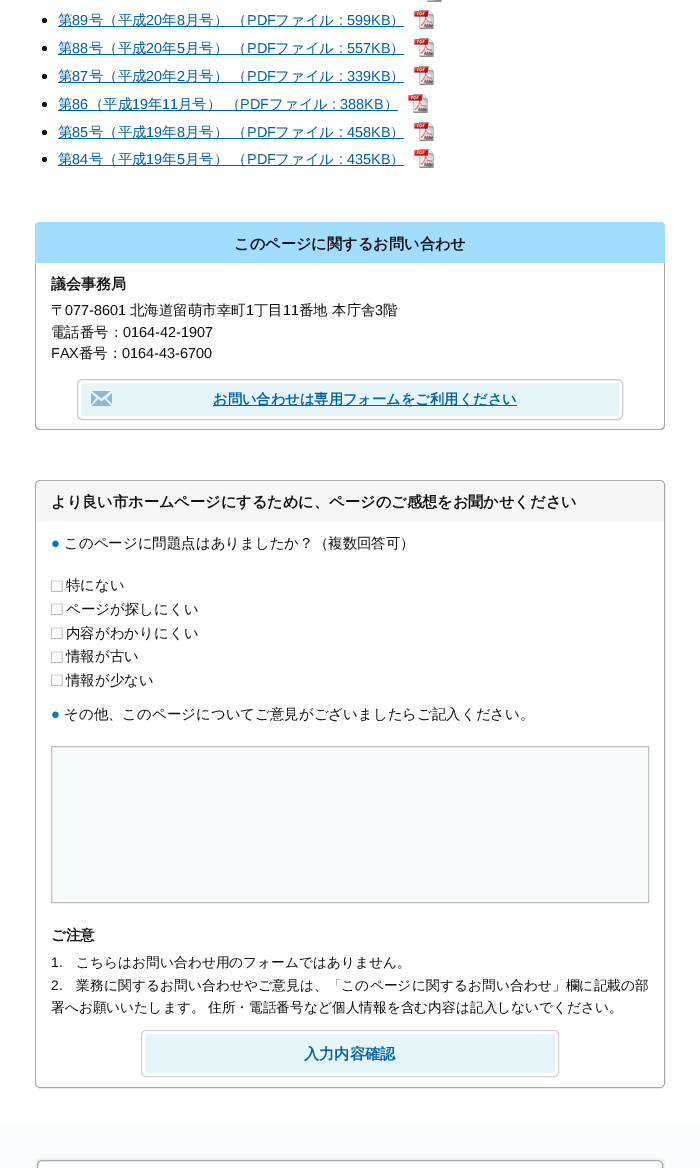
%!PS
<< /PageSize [700 1168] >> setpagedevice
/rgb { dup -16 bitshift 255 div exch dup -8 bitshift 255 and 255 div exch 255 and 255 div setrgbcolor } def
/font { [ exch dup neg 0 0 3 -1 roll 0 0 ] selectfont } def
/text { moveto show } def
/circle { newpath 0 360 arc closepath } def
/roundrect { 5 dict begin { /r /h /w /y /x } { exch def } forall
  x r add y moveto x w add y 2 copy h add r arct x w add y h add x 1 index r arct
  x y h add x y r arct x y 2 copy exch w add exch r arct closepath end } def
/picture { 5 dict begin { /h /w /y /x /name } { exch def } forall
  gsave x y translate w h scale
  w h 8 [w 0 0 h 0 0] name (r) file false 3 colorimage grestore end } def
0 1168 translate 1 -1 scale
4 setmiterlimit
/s1 { /WenQuanYiZenHei-Medium 14.45 font 16#0063A6 rgb } def
/s2 { /LiberationSans-Regular 14.45 font 16#0063A6 rgb } def
/s3 { /WenQuanYiZenHei-Bold 15.2 font 16#121212 rgb } def
/s4 { /WenQuanYiZenHei-Bold 15 font 16#121212 rgb } def
/s5 { /WenQuanYiZenHei-Medium 14.45 font 16#121212 rgb } def
/s6 { /LiberationSans-Regular 14.45 font 16#121212 rgb } def
/s7 { /WenQuanYiZenHei-Bold 14.25 font 16#0063A6 rgb } def
/s8 { /LiberationSans-Regular 15 font 16#007BC4 rgb } def
/s9 { /LiberationSans-Regular 19 font 16#AAAAAA rgb } def
/s10 { /WenQuanYiZenHei-Bold 14.5 font 16#121212 rgb } def
/s11 { /LiberationSans-Regular 13.7 font 16#121212 rgb } def
/s12 { /WenQuanYiZenHei-Medium 13.7 font 16#121212 rgb } def
/s13 { /WenQuanYiZenHei-Bold 15.2 font 16#0063A6 rgb } def
16#F9FCFF rgb
0 0 700 1168 rectfill
16#FFFFFF rgb
0 0 700 1123 rectfill
(pic1.raw) 427 0 15 2 picture
16#121212 rgb
44.5 20.5 2.5 circle fill
16#0063A6 rgb
58 26 346 1 rectfill
s1
(第) 58 25 text
s2
(89) 72 25 text
s1
(号（平成) 89 25 text
s2
(20) 146 25 text
s1
(年) 162 25 text
s2
(8) 177 25 text
s1
(月号）) 185 25 text
(（) 232 25 text
s2
(PDF) 247 25 text
s1
(ファイル) 275 25 text
s2
(: 599KB) 339 25 text
s1
(）) 390 25 text
(pic2.raw) 414 10 20 19 picture
16#121212 rgb
44.5 48.5 2.5 circle fill
16#0063A6 rgb
58 54 346 1 rectfill
(第) 58 53 text
s2
(88) 72 53 text
s1
(号（平成) 89 53 text
s2
(20) 146 53 text
s1
(年) 162 53 text
s2
(5) 177 53 text
s1
(月号）) 185 53 text
(（) 232 53 text
s2
(PDF) 247 53 text
s1
(ファイル) 275 53 text
s2
(: 557KB) 339 53 text
s1
(）) 390 53 text
(pic2.raw) 414 38 20 19 picture
16#121212 rgb
44.5 76.5 2.5 circle fill
16#0063A6 rgb
58 82 346 1 rectfill
(第) 58 81 text
s2
(87) 72 81 text
s1
(号（平成) 89 81 text
s2
(20) 146 81 text
s1
(年) 162 81 text
s2
(2) 177 81 text
s1
(月号）) 185 81 text
(（) 232 81 text
s2
(PDF) 247 81 text
s1
(ファイル) 275 81 text
s2
(: 339KB) 339 81 text
s1
(）) 390 81 text
(pic2.raw) 414 66 20 19 picture
16#121212 rgb
44.5 104.5 2.5 circle fill
16#0063A6 rgb
58 110 340 1 rectfill
(第) 58 109 text
s2
(86) 72 109 text
s1
(（平成) 89 109 text
s2
(19) 132 109 text
s1
(年) 148 109 text
s2
(11) 162 109 text
s1
(月号）) 178 109 text
(（) 226 109 text
s2
(PDF) 240 109 text
s1
(ファイル) 269 109 text
s2
(: 388KB) 332 109 text
s1
(）) 384 109 text
(pic2.raw) 408 94 20 19 picture
16#121212 rgb
44.5 132.5 2.5 circle fill
16#0063A6 rgb
58 138 346 1 rectfill
(第) 58 137 text
s2
(85) 72 137 text
s1
(号（平成) 89 137 text
s2
(19) 146 137 text
s1
(年) 162 137 text
s2
(8) 177 137 text
s1
(月号）) 185 137 text
(（) 232 137 text
s2
(PDF) 247 137 text
s1
(ファイル) 275 137 text
s2
(: 458KB) 339 137 text
s1
(）) 390 137 text
(pic2.raw) 414 122 20 19 picture
16#121212 rgb
44.5 159.5 2.5 circle fill
16#0063A6 rgb
58 165 346 1 rectfill
(第) 58 164 text
s2
(84) 72 164 text
s1
(号（平成) 89 164 text
s2
(19) 146 164 text
s1
(年) 162 164 text
s2
(5) 177 164 text
s1
(月号）) 185 164 text
(（) 232 164 text
s2
(PDF) 247 164 text
s1
(ファイル) 275 164 text
s2
(: 435KB) 339 164 text
s1
(）) 390 164 text
(pic2.raw) 414 149 20 19 picture
16#A2DCFF rgb
40 222 moveto 660 222 lineto 663 222 665 224 665 227 curveto 665 263 lineto 35 263 lineto 35 227 lineto 35 224 37 222 40 222 curveto closepath fill
40 222 moveto 660 222 lineto 663 222 665 224 665 227 curveto 665 263 lineto 35 263 lineto 35 227 lineto 35 224 37 222 40 222 curveto closepath 40 223 moveto 660 223 lineto 662 223 664 225 664 227 curveto 664 263 lineto 36 263 lineto 36 227 lineto 36 225 38 223 40 223 curveto closepath eofill
s3
(このページに関するお問い合わせ) 234 249 text
16#AAAAAA rgb
35 263 moveto 665 263 lineto 665 425 lineto 665 428 663 430 660 430 curveto 40 430 lineto 37 430 35 428 35 425 curveto closepath 36 263 moveto 664 263 lineto 664 425 lineto 664 427 662 429 660 429 curveto 40 429 lineto 38 429 36 427 36 425 curveto closepath eofill
s4
(議会事務局) 51 289 text
s5
(〒) 51 315 text
s6
(077-8601) 65 315 text
s5
(北海道留萌市幸町) 130 315 text
s6
(1) 246 315 text
s5
(丁目) 254 315 text
s6
(11) 283 315 text
s5
(番地 本庁舎) 299 315 text
s6
(3) 375 315 text
s5
(階) 383 315 text
(電話番号：) 51 337 text
s6
(0164-42-1907) 123 337 text
(FAX) 51 358 text
s5
(番号：) 79 358 text
s6
(0164-43-6700) 122 358 text
16#E6F5F8 rgb
78 380 544 39 5 roundrect fill
(pic3.raw) 91 391 21 16 picture
16#FFFFFF rgb
3 setlinewidth
79.5 381.5 541 36 3.5 roundrect stroke
16#0063A6 rgb
213 405 304 1 rectfill
16#CCCCCC rgb
1 setlinewidth
77.5 379.5 545 40 4.5 roundrect stroke
s7
(お問い合わせは専用フォームをご利用ください) 213 404 text
16#AAAAAA rgb
35.5 480.5 629 607 4.5 roundrect stroke
16#F7F7F7 rgb
41 481 moveto 659 481 lineto 662 481 664 483 664 486 curveto 664 522 lineto 36 522 lineto 36 486 lineto 36 483 38 481 41 481 curveto closepath fill
s3
(より良い市ホームページにするために、ページのご感想をお聞かせください) 51 507 text
16#FFFFFF rgb
36 522 moveto 664 522 lineto 664 1082 lineto 664 1085 662 1087 659 1087 curveto 41 1087 lineto 38 1087 36 1085 36 1082 curveto closepath fill
s8
(●) 51 548 text
s5
(このページに問題点はありましたか？（複数回答可）) 64 548 text
s9
(□) 51 592 text
s5
(特にない) 66 590 text
s9
(□) 51 615 text
s5
(ページが探しにくい) 66 614 text
s9
(□) 51 639 text
s5
(内容がわかりにくい) 66 638 text
s9
(□) 51 663 text
s5
(情報が古い) 66 661 text
s9
(□) 51 686 text
s5
(情報が少ない) 66 685 text
s8
(●) 51 719 text
s5
(その他、このページについてご意見がございましたらご記入ください。) 64 719 text
16#F7FAFB rgb
51.5 746.5 moveto 648.5 746.5 lineto 648.5 902.5 lineto 51.5 902.5 lineto closepath gsave fill grestore
16#BFBFBF rgb
stroke
s10
(ご注意) 51 940 text
s11
(1.) 51 967 text
s12
(こちらはお問い合わせ用のフォームではありません。) 76 967 text
/LiberationSans-Regular 13.7 font
51 990 moveto 0.1 0 (2.) ashow
/WenQuanYiZenHei-Medium 13.7 font
76 990 moveto 0.1 0 (業務に関するお問い合わせやご意見は、「このページに関するお問い合わせ」欄に記載の部) ashow
(署へお願いいたします。) 51 1012 text
(住所・電話番号など個人情報を含む内容は記入しないでください。) 208 1012 text
16#CCCCCC rgb
141.5 1030.5 417 46 4.5 roundrect stroke
16#E6F5F8 rgb
143.5 1032.5 413 42 3.5 roundrect gsave fill grestore
16#FFFFFF rgb
3 setlinewidth
stroke
s13
(入力内容確認) 304 1059 text
16#FFFFFF rgb
36 1159 628 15 4 roundrect gsave fill grestore
16#EBF3FA rgb
2 setlinewidth
stroke
16#AAAAAA rgb
1 setlinewidth
37.5 1160.5 625 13 4.5 roundrect stroke
showpage
